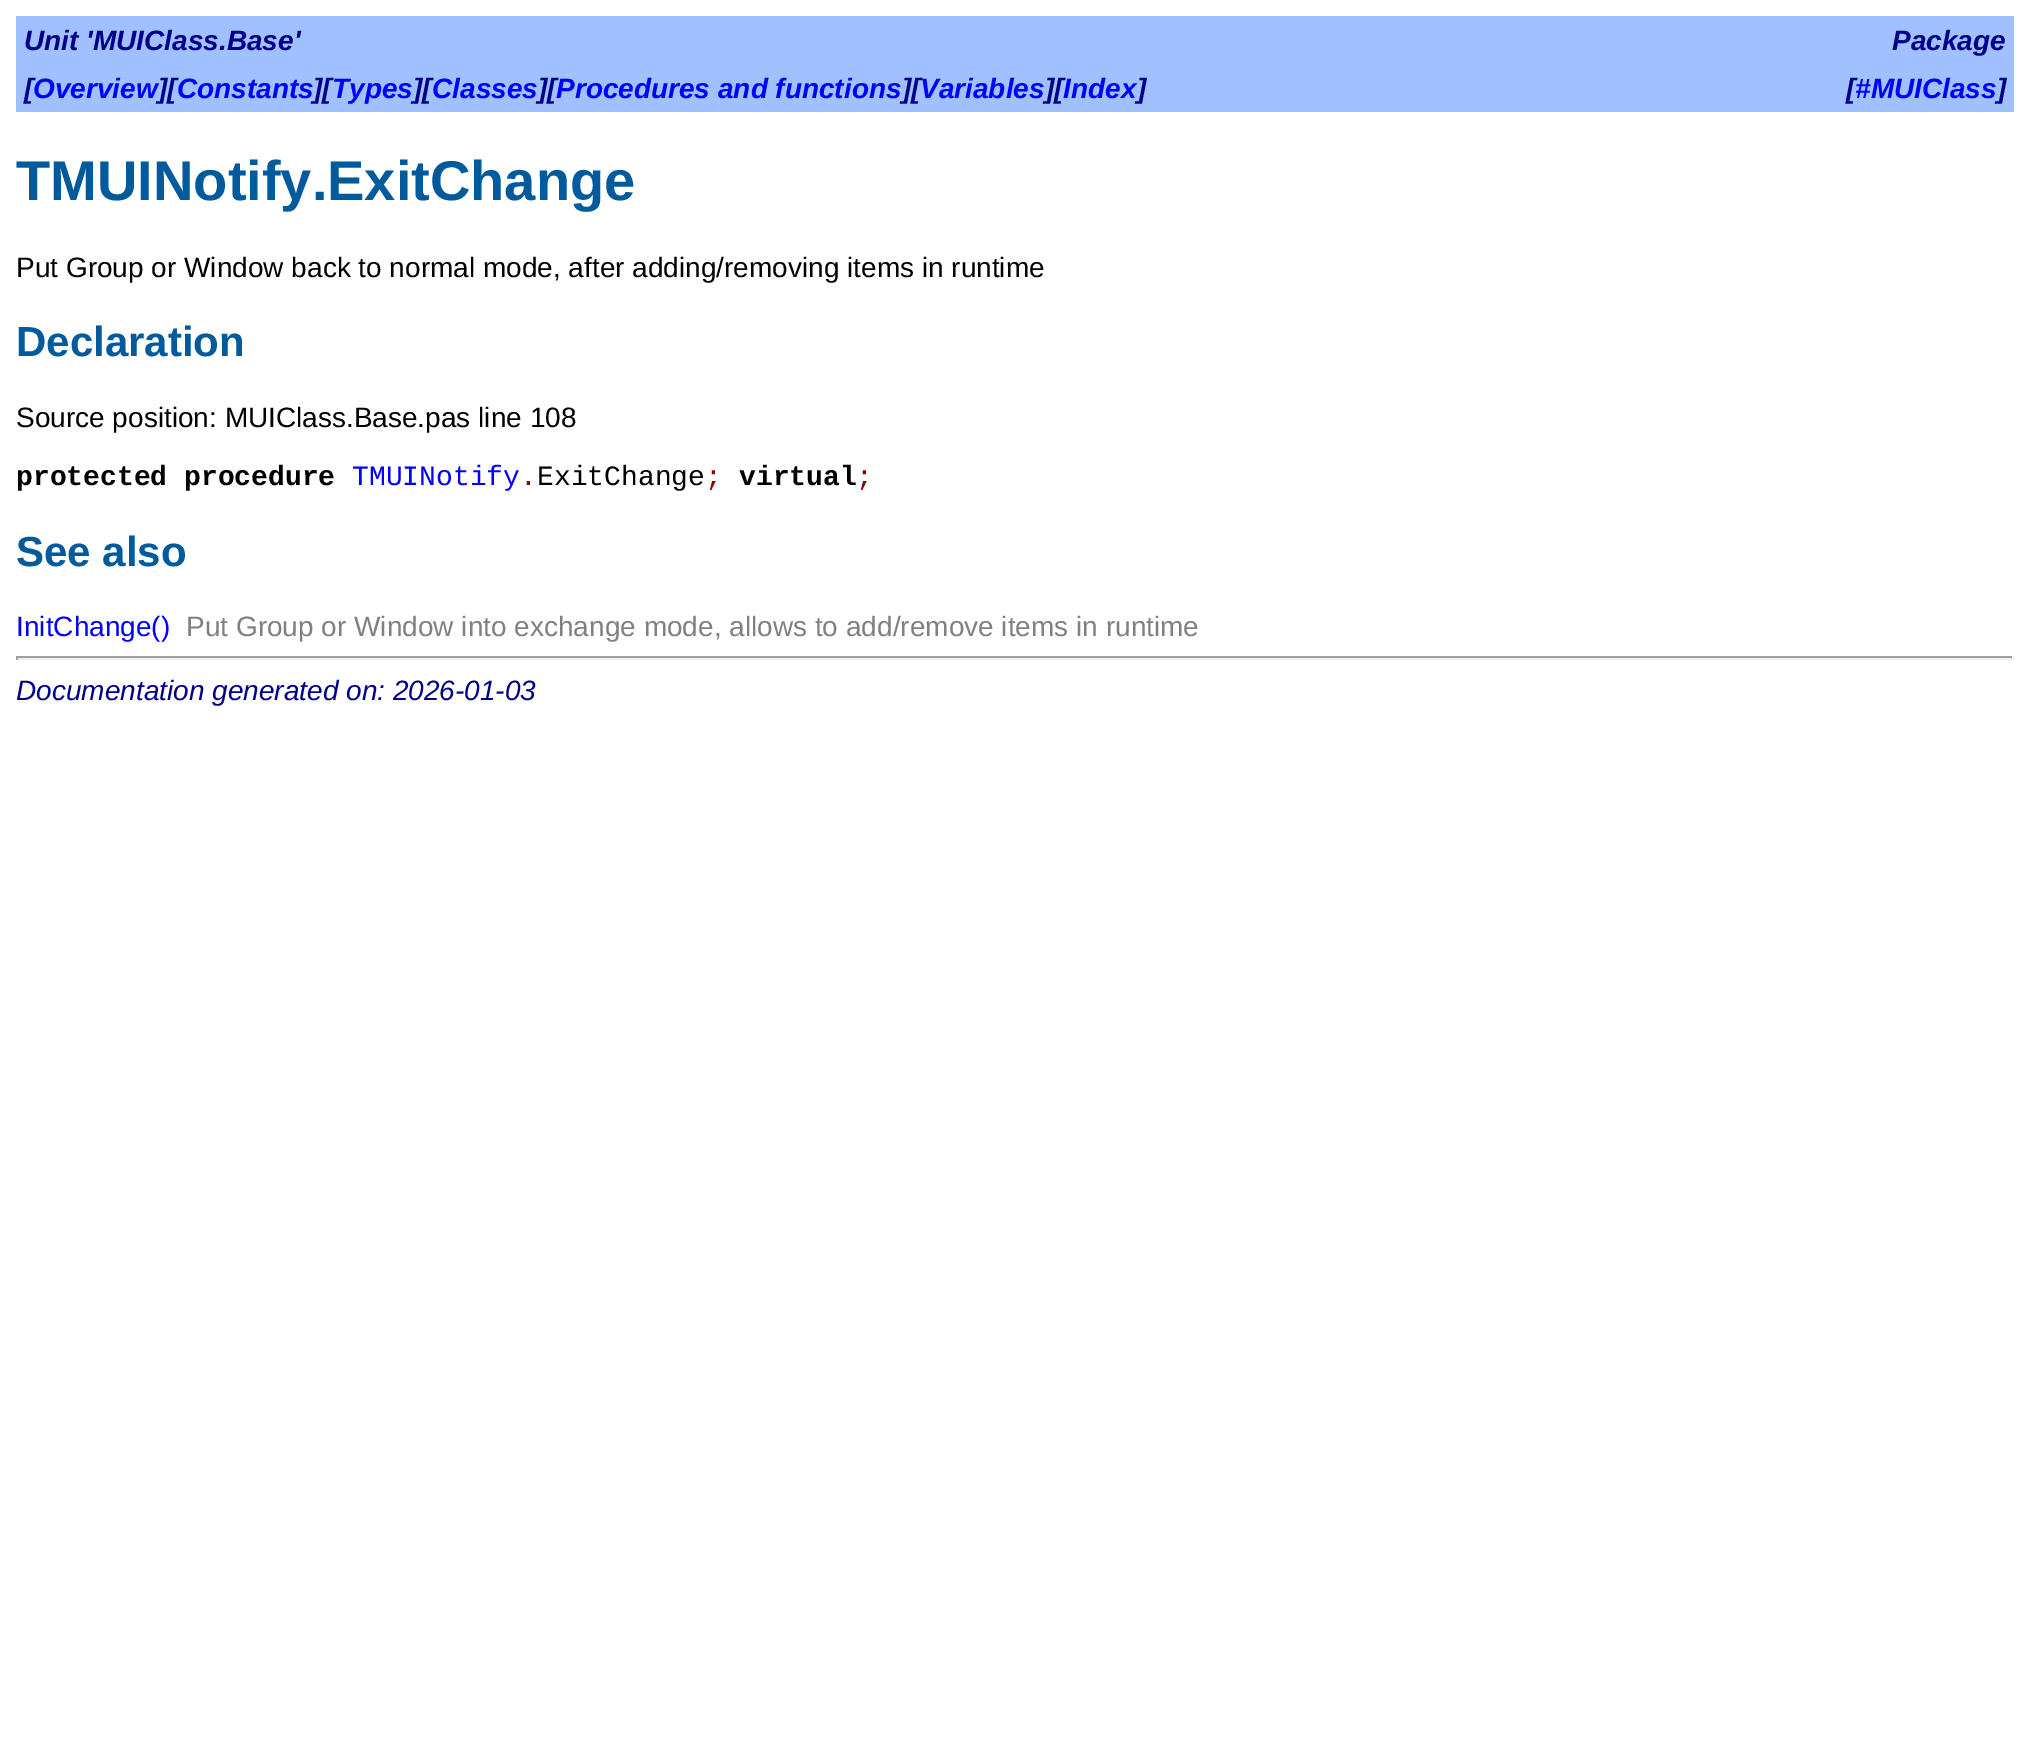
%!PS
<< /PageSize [2030 1739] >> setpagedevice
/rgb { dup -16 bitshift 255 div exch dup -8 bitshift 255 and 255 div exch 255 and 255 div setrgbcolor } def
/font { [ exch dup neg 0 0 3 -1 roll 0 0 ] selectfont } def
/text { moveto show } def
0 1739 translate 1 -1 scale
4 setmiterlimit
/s1 { /LiberationSans-BoldItalic 28 font 16#00008B rgb } def
/s2 { /LiberationSans-BoldItalic 28 font 16#0000FF rgb } def
/s3 { /LiberationSans-Bold 56 font 16#005A9C rgb } def
/s4 { /LiberationSans-Regular 28 font 16#000000 rgb } def
/s5 { /LiberationSans-Bold 42 font 16#005A9C rgb } def
/s6 { /LiberationMono-Bold 28 font 16#000000 rgb } def
/s7 { /LiberationMono-Regular 28 font 16#0000FF rgb } def
/s8 { /LiberationMono-Regular 28 font 16#8B0000 rgb } def
/s9 { /LiberationMono-Regular 28 font 16#000000 rgb } def
/s10 { /LiberationSans-Regular 28 font 16#0000FF rgb } def
/s11 { /LiberationSans-Regular 28 font 16#808080 rgb } def
/s12 { /LiberationSans-Italic 28 font 16#00008B rgb } def
16#FFFFFF rgb
0 0 2030 1739 rectfill
16#A0C0FF rgb
16 16 1998 96 rectfill
s1
(Unit 'MUIClass.Base') 24 50 text
(Package) 1892 50 text
([) 24 98 text
s2
(Overview) 33 98 text
s1
(][) 158 98 text
s2
(Constants) 177 98 text
s1
(][) 313 98 text
s2
(Types) 332 98 text
s1
(][) 413 98 text
s2
(Classes) 432 98 text
s1
(][) 538 98 text
s2
(Procedures and functions) 556 98 text
s1
(][) 902 98 text
s2
(Variables) 920 98 text
s1
(][) 1045 98 text
s2
(Index) 1063 98 text
s1
(]) 1137 98 text
([) 1846 98 text
s2
(#MUIClass) 1855 98 text
s1
(]) 1997 98 text
s3
(TMUINotify.ExitChange) 16 200 text
s4
(Put Group or Window back to normal mode, after adding/removing items in runtime) 16 277 text
s5
(Declaration) 16 356 text
s4
(Source position: MUIClass.Base.pas line 108) 16 427 text
s6
(protected procedure) 16 485 text
s7
(TMUINotify) 352 485 text
s8
(.) 520 485 text
s9
(ExitChange) 537 485 text
s8
(;) 705 485 text
s6
(virtual) 739 485 text
s8
(;) 856 485 text
s5
(See also) 16 566 text
s10
(InitChange\(\)) 16 636 text
s11
(Put Group or Window into exchange mode, allows to add/remove items in runtime) 186 636 text
16#9F9F9F rgb
16 656 1998 2 rectfill
16#EEEEEE rgb
2012 656 2 4 rectfill
16 658 1998 2 rectfill
16#9F9F9F rgb
16 656 2 4 rectfill
s12
(Documentation generated on: 2026-01-03) 16 700 text
showpage
